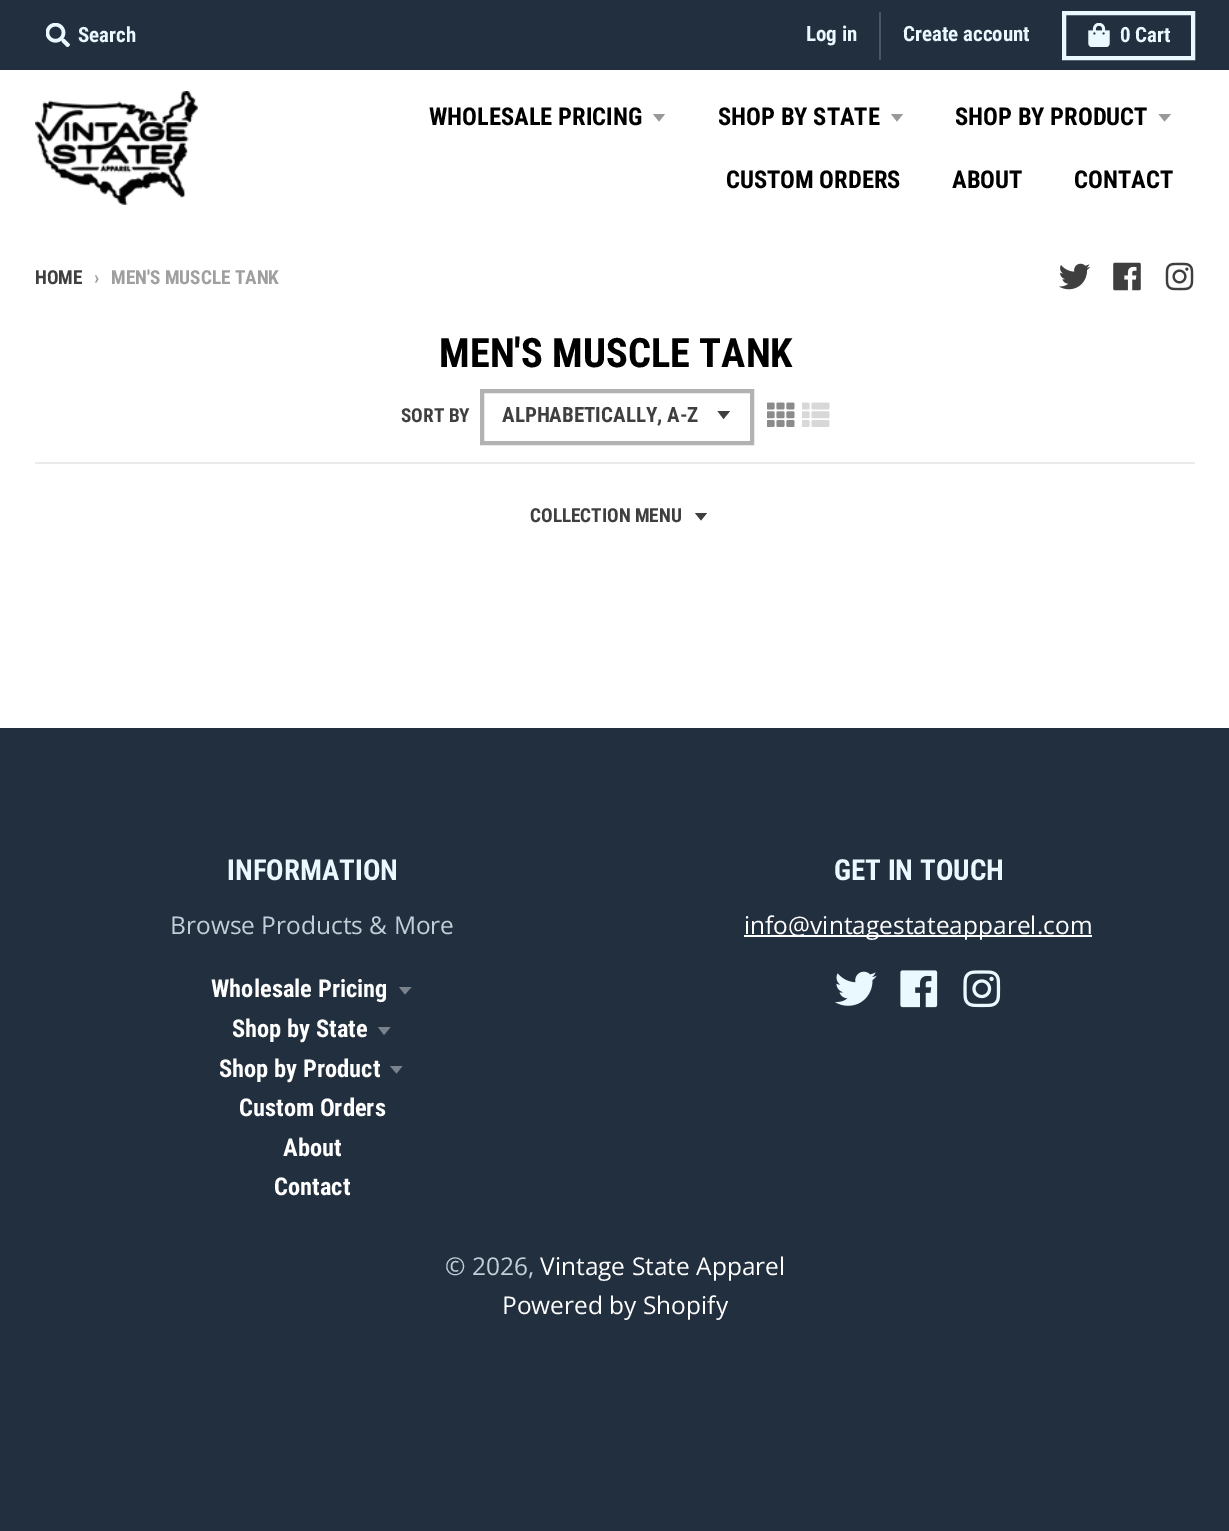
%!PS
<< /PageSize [1229 1531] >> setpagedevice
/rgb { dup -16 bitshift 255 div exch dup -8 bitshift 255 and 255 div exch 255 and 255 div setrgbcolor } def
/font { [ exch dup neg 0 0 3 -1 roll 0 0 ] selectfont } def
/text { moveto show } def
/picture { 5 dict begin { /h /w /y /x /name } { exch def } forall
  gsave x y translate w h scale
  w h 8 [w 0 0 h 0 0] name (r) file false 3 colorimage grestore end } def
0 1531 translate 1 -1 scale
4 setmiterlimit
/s1 { /RobotoCondensed-Bold 21 font 16#E9F9FF rgb } def
/s2 { /RobotoCondensed-Bold 24.5 font 16#000000 rgb } def
/s3 { /RobotoCondensed-Bold 19.25 font 16#3F3F3F rgb } def
/s4 { /RobotoCondensed-Bold 19.25 font 16#9F9F9F rgb } def
/s5 { /RobotoCondensed-Bold 40.5 font 16#000000 rgb } def
/s6 { /RobotoCondensed-Bold 21 font 16#3F3F3F rgb } def
/s7 { /RobotoCondensed-Bold 29 font 16#E9F9FF rgb } def
/s8 { /OpenSans-Regular 24.5 font 16#C1D0D8 rgb } def
/s9 { /RobotoCondensed-Bold 24.5 font 16#FFFFFF rgb } def
/s10 { /OpenSans-Regular 24.5 font 16#FFFFFF rgb } def
16#222F3E rgb
0 0 1229 1531 rectfill
16#FFFFFF rgb
0 70 1229 658 rectfill
(pic1.raw) 46 23 24 24 picture
s1
(Search) 78 42 text
16#495764 rgb
879 12 2 48 rectfill
s1
(Log in) 806 41 text
(Create account) 903 41 text
4 setlinewidth
1064 13 129 45 rectstroke
(pic2.raw) 1088 23 22 24 picture
(0 Cart) 1120 42 text
(pic3.raw) 35 91 163 114 picture
s2
(WHOLESALE PRICING) 429 125 text
16#999999 rgb
653 114 moveto 659 121.5 lineto 665 114 lineto closepath fill
s2
(SHOP BY STATE) 718 125 text
16#999999 rgb
891 114 moveto 897 121.5 lineto 903 114 lineto closepath fill
s2
(SHOP BY PRODUCT) 955 125 text
16#999999 rgb
1158.5 114 moveto 1164.5 121.5 lineto 1171 114 lineto closepath fill
s2
(CUSTOM ORDERS) 726 188 text
(ABOUT) 952 188 text
(CONTACT) 1074 188 text
s3
(HOME) 35 284 text
s4
(›) 94 284 text
(MEN'S MUSCLE TANK) 111 284 text
(pic4.raw) 1059 263 31 27 picture
(pic5.raw) 1113 262 28 29 picture
(pic6.raw) 1165 262 29 29 picture
16#EBEBEB rgb
35 462 1160 2 rectfill
s5
(MEN'S MUSCLE TANK) 439 367 text
s3
(SORT BY) 401 422 text
717.5 411 moveto 723.5 419 lineto 730 411 lineto closepath fill
16#B2B2B2 rgb
482 391 270 52 rectstroke
s6
(ALPHABETICALLY, A-Z) 502 422 text
(pic7.raw) 767 402 28 25 picture
(pic8.raw) 802 402 28 25 picture
s3
(COLLECTION MENU) 530 522 text
695 513 moveto 701 520.5 lineto 707 513 lineto closepath fill
s7
(INFORMATION) 227 880 text
s8
(Browse Products & More) 170 934 text
s9
(Wholesale Pricing) 211 997 text
16#7A828B rgb
399 987 moveto 405 994.5 lineto 411.5 987 lineto closepath fill
s9
(Shop by State) 232 1037 text
16#7A828B rgb
378 1027 moveto 384 1035 lineto 390.5 1027 lineto closepath fill
s9
(Shop by Product) 219 1077 text
16#7A828B rgb
390 1066 moveto 396.5 1073.5 lineto 402.5 1066 lineto closepath fill
s9
(Custom Orders) 239 1116 text
(About) 283 1156 text
(Contact) 274 1195 text
s7
(GET IN TOUCH) 834 880 text
16#FFFFFF rgb
744 935 348 2 rectfill
s10
(info@vintagestateapparel.com) 744 934 text
(pic9.raw) 835 971 42 35 picture
(pic10.raw) 900 970 38 38 picture
(pic11.raw) 963 970 38 38 picture
s8
(© 2026,) 445 1275 text
s10
(Vintage State Apparel) 540 1275 text
(Powered by Shopify) 502 1314 text
showpage
